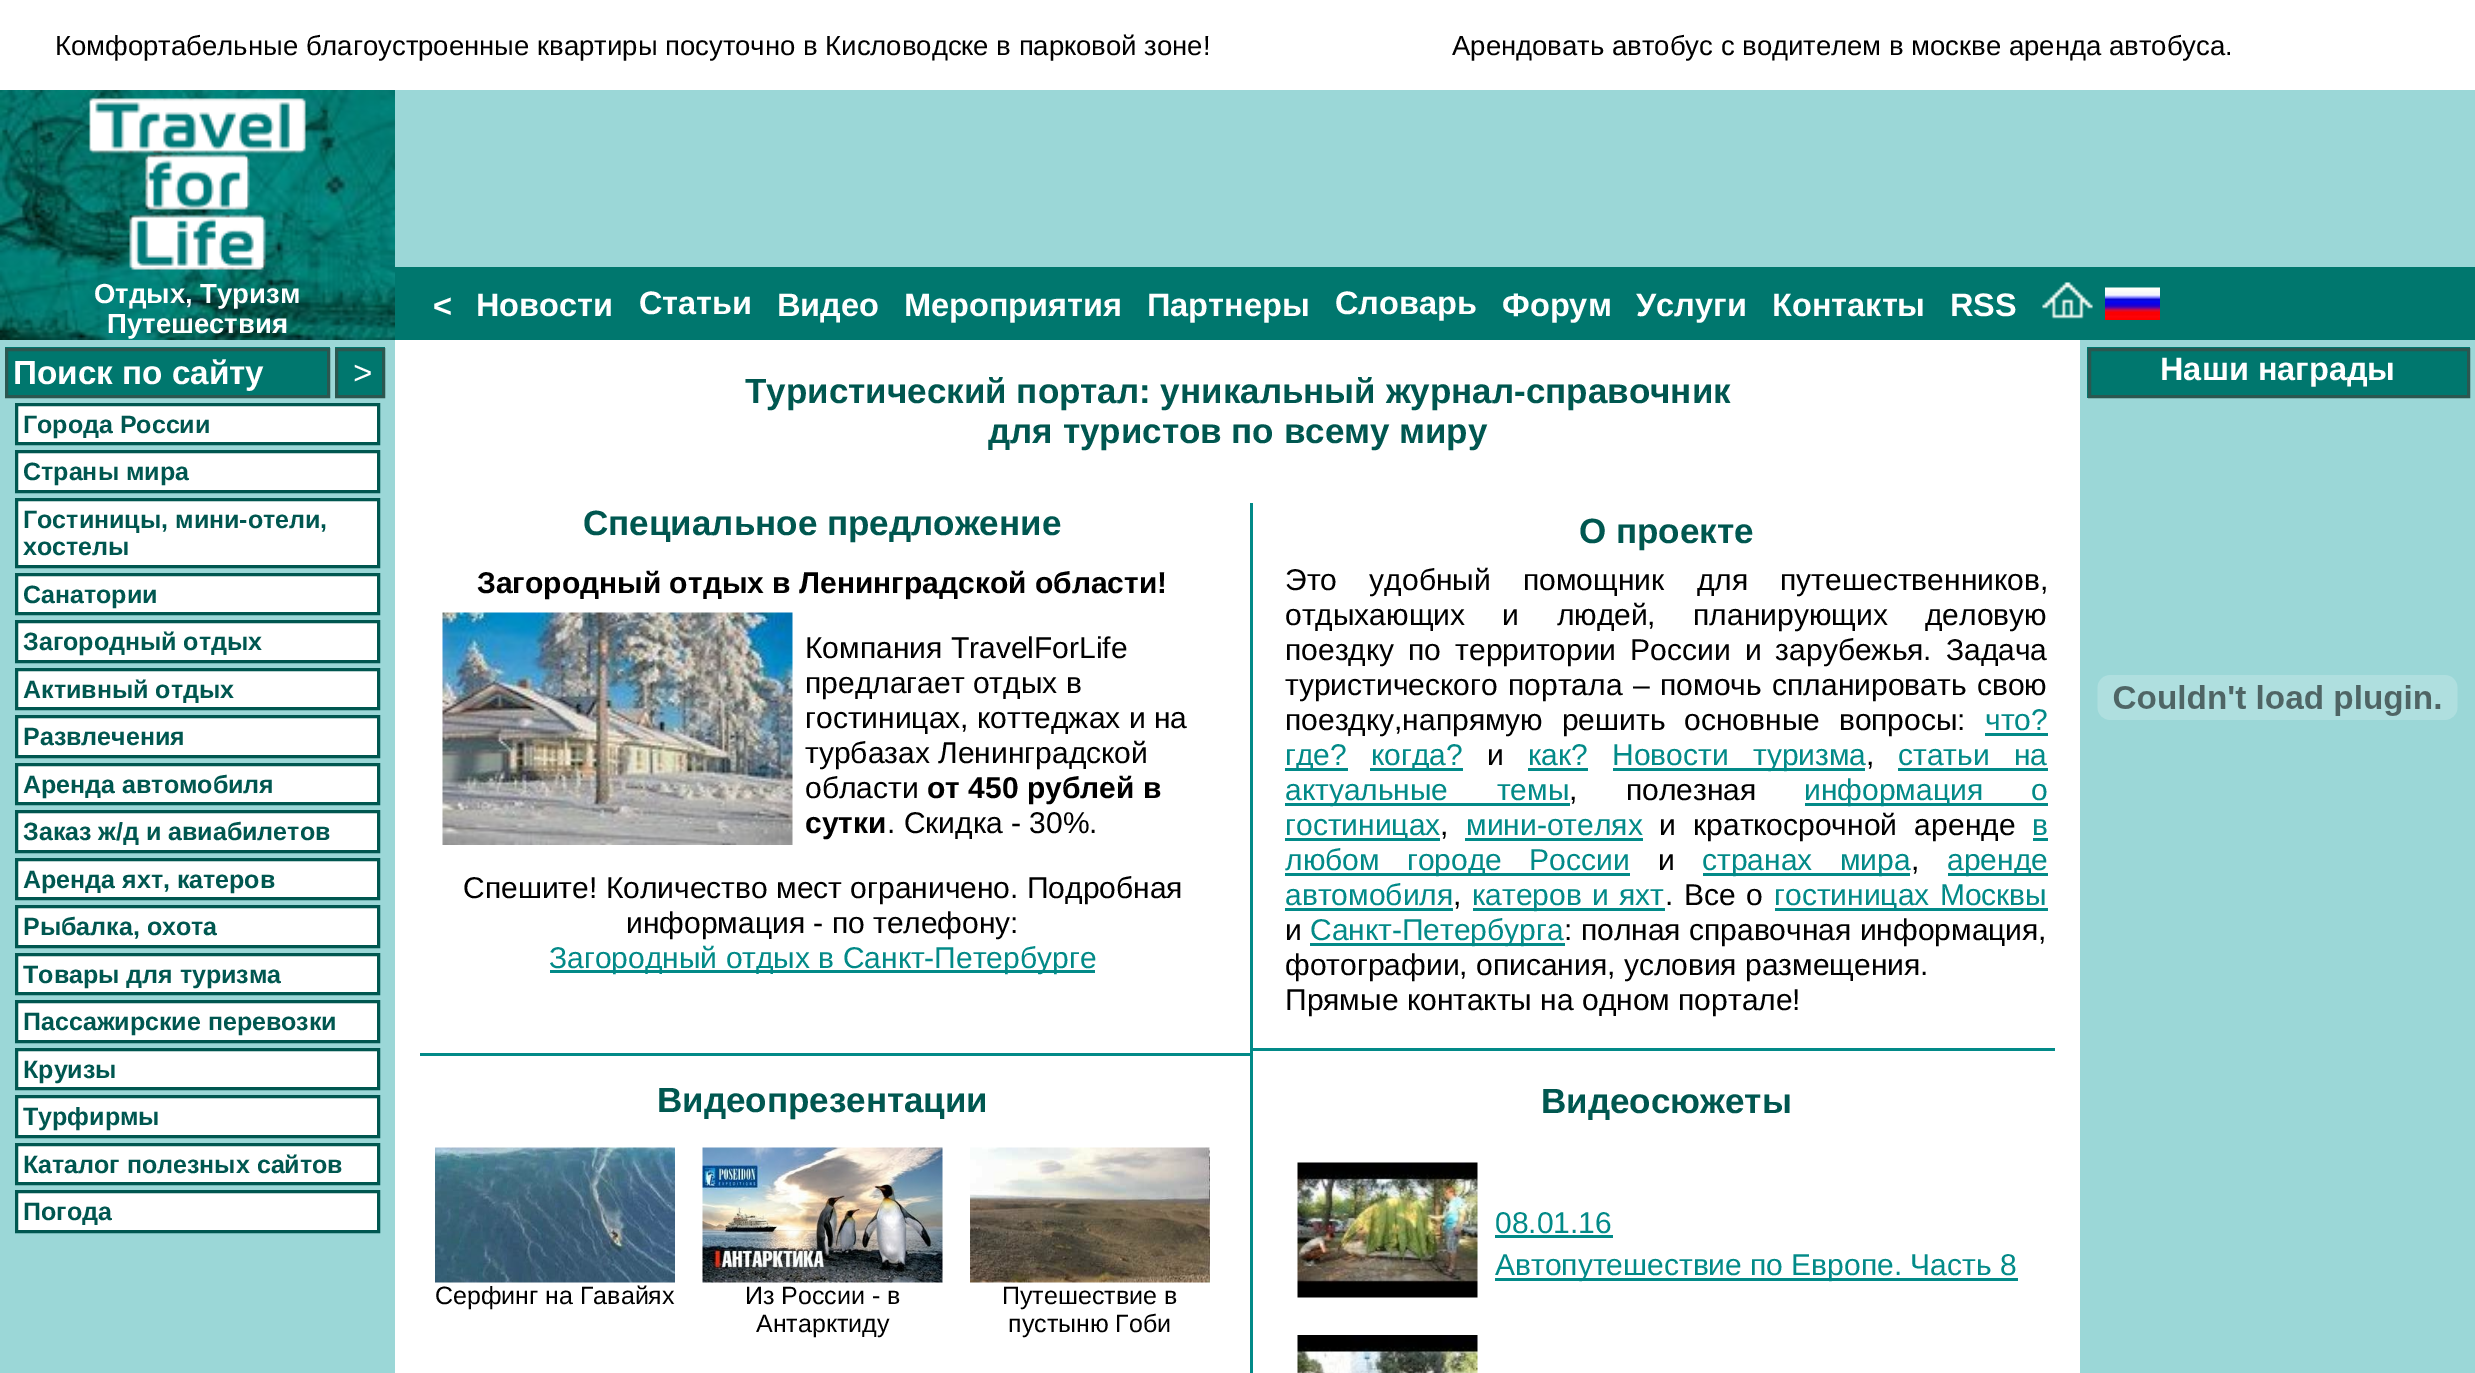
%!PS
<< /PageSize [2475 1373] >> setpagedevice
/rgb { dup -16 bitshift 255 div exch dup -8 bitshift 255 and 255 div exch 255 and 255 div setrgbcolor } def
/font { [ exch dup neg 0 0 3 -1 roll 0 0 ] selectfont } def
/text { moveto show } def
/picture { 5 dict begin { /h /w /y /x /name } { exch def } forall
  gsave x y translate w h scale
  w h 8 [w 0 0 h 0 0] name (r) file false 3 colorimage grestore end } def
0 1373 translate 1 -1 scale
4 setmiterlimit
/s1 { /LiberationSans-Regular 27.5 font 16#000000 rgb } def
/s2 { /LiberationSans-Bold 27.5 font 16#FFFFFF rgb } def
/s3 { /LiberationSans-Bold 32.5 font 16#FFFFFF rgb } def
/s4 { /LiberationSans-Bold 33.25 font 16#FFFFFF rgb } def
/s5 { /LiberationSans-Regular 33.25 font 16#FFFFFF rgb } def
/s6 { /LiberationSans-Bold 25 font 16#005750 rgb } def
/s7 { /LiberationSans-Bold 35 font 16#005750 rgb } def
/s8 { /LiberationSans-Bold 30 font 16#000000 rgb } def
/s9 { /LiberationSans-Regular 30 font 16#000000 rgb } def
/s10 { /LiberationSans-Regular 30 font 16#028A88 rgb } def
/s11 { /LiberationSans-Regular 25 font 16#000000 rgb } def
16#FFFFFF rgb
0 0 2475 1373 rectfill
s1
(Комфортабельные благоустроенные квартиры посуточно в Кисловодске в парковой зоне!) 55 55 text
(Арендовать автобус с водителем в москве аренда автобуса.) 1452 55 text
16#9BD7D7 rgb
395 90 2080 177 rectfill
(pic1.raw) 0 90 395 250 picture
(pic2.raw) 89 98 217 172 picture
s2
(Отдых, Туризм) 94 303 text
(Путешествия) 107 333 text
16#00776E rgb
395 267 2080 73 rectfill
s3
(<) 433 317 text
(Новости) 476 316 text
(Статьи) 639 314 text
(Видео) 777 316 text
(Мероприятия) 904 316 text
(Партнеры) 1147 316 text
(Словарь) 1335 314 text
(Форум) 1502 316 text
(Услуги) 1636 316 text
(Контакты) 1772 316 text
(RSS) 1950 316 text
(pic3.raw) 2042 282 51 37 picture
(pic4.raw) 2105 287 55 33 picture
16#9BD7D7 rgb
0 340 395 1033 rectfill
16#00776E rgb
5 347 325 48 rectfill
16#2B5750 rgb
3 setlinewidth
6.5 349.5 322 47 rectstroke
s4
(Поиск по сайту) 13 384 text
16#00776E rgb
335 347 50 48 rectfill
16#2B5750 rgb
336.5 349.5 47 47 rectstroke
s5
(>) 353 384 text
16.5 404.5 moveto 378.5 404.5 lineto 378.5 443.5 lineto 16.5 443.5 lineto closepath gsave fill grestore
16#005750 rgb
stroke
s6
(Города России) 23 433 text
16#FFFFFF rgb
16.5 451.5 moveto 378.5 451.5 lineto 378.5 491.5 lineto 16.5 491.5 lineto closepath gsave fill grestore
16#005750 rgb
stroke
(Страны мира) 23 480 text
16#FFFFFF rgb
16.5 499.5 moveto 378.5 499.5 lineto 378.5 566.5 lineto 16.5 566.5 lineto closepath gsave fill grestore
16#005750 rgb
stroke
(Гостиницы, мини-отели,) 23 528 text
(хостелы) 23 555 text
16#FFFFFF rgb
16.5 574.5 moveto 378.5 574.5 lineto 378.5 613.5 lineto 16.5 613.5 lineto closepath gsave fill grestore
16#005750 rgb
stroke
(Санатории) 23 603 text
16#FFFFFF rgb
16.5 621.5 moveto 378.5 621.5 lineto 378.5 661.5 lineto 16.5 661.5 lineto closepath gsave fill grestore
16#005750 rgb
stroke
(Загородный отдых) 23 650 text
16#FFFFFF rgb
16.5 669.5 moveto 378.5 669.5 lineto 378.5 708.5 lineto 16.5 708.5 lineto closepath gsave fill grestore
16#005750 rgb
stroke
(Активный отдых) 23 698 text
16#FFFFFF rgb
16.5 716.5 moveto 378.5 716.5 lineto 378.5 756.5 lineto 16.5 756.5 lineto closepath gsave fill grestore
16#005750 rgb
stroke
(Развлечения) 23 745 text
16#FFFFFF rgb
16.5 764.5 moveto 378.5 764.5 lineto 378.5 803.5 lineto 16.5 803.5 lineto closepath gsave fill grestore
16#005750 rgb
stroke
(Аренда автомобиля) 23 793 text
16#FFFFFF rgb
16.5 811.5 moveto 378.5 811.5 lineto 378.5 851.5 lineto 16.5 851.5 lineto closepath gsave fill grestore
16#005750 rgb
stroke
(Заказ ж/д и авиабилетов) 23 840 text
16#FFFFFF rgb
16.5 859.5 moveto 378.5 859.5 lineto 378.5 898.5 lineto 16.5 898.5 lineto closepath gsave fill grestore
16#005750 rgb
stroke
(Аренда яхт, катеров) 23 888 text
16#FFFFFF rgb
16.5 906.5 moveto 378.5 906.5 lineto 378.5 946.5 lineto 16.5 946.5 lineto closepath gsave fill grestore
16#005750 rgb
stroke
(Рыбалка, охота) 23 935 text
16#FFFFFF rgb
16.5 954.5 moveto 378.5 954.5 lineto 378.5 993.5 lineto 16.5 993.5 lineto closepath gsave fill grestore
16#005750 rgb
stroke
(Товары для туризма) 23 983 text
16#FFFFFF rgb
16.5 1001.5 moveto 378.5 1001.5 lineto 378.5 1041.5 lineto 16.5 1041.5 lineto closepath gsave fill grestore
16#005750 rgb
stroke
(Пассажирские перевозки) 23 1030 text
16#FFFFFF rgb
16.5 1049.5 moveto 378.5 1049.5 lineto 378.5 1088.5 lineto 16.5 1088.5 lineto closepath gsave fill grestore
16#005750 rgb
stroke
(Круизы) 23 1078 text
16#FFFFFF rgb
16.5 1096.5 moveto 378.5 1096.5 lineto 378.5 1136.5 lineto 16.5 1136.5 lineto closepath gsave fill grestore
16#005750 rgb
stroke
(Турфирмы) 23 1125 text
16#FFFFFF rgb
16.5 1144.5 moveto 378.5 1144.5 lineto 378.5 1183.5 lineto 16.5 1183.5 lineto closepath gsave fill grestore
16#005750 rgb
stroke
(Каталог полезных сайтов) 23 1173 text
16#FFFFFF rgb
16.5 1191.5 moveto 378.5 1191.5 lineto 378.5 1231.5 lineto 16.5 1231.5 lineto closepath gsave fill grestore
16#005750 rgb
stroke
(Погода) 23 1220 text
16#9BD7D7 rgb
2080 340 395 1033 rectfill
16#00776E rgb
2087 347 383 51 rectfill
16#2B5750 rgb
2089.5 349.5 379 47 rectstroke
s3
(Наши награды) 2160 380 text
(pic5.raw) 2097 675 361 45 picture
s7
(Туристический портал: уникальный журнал-справочник) 745 403 text
(для туристов по всему миру) 988 443 text
(Специальное предложение) 583 535 text
s8
(Загородный отдых в Ленинградской области!) 477 593 text
(pic6.raw) 442 612 351 233 picture
s9
(Компания TravelForLife) 805 658 text
(предлагает отдых в) 805 693 text
(гостиницах, коттеджах и на) 805 728 text
(турбазах Ленинградской) 805 763 text
(области) 805 798 text
s8
(от 450 рублей в) 927 798 text
(сутки) 805 833 text
s9
(. Скидка - 30%.) 887 833 text
(Спешите! Количество мест ограничено. Подробная) 463 898 text
(информация - по телефону:) 626 933 text
16#028A88 rgb
550 970 545 3 rectfill
(Загородный отдых в Санкт-Петербурге) 549 968 text
1250 1048 805 3 rectfill
1250 503 3 870 rectfill
s7
(О проекте) 1579 543 text
/LiberationSans-Regular 30 font
16#000000 rgb
1285 590 moveto 24 0 32 (Это удобный помощник для путешественников,) widthshow
1285 625 moveto 29 0 32 (отдыхающих и людей, планирующих деловую) widthshow
1285 660 moveto 5.75 0 32 (поездку по территории России и зарубежья. Задача) widthshow
1285 695 moveto 2.25 0 32 (туристического портала – помочь спланировать свою) widthshow
1285 730 moveto 10.5 0 32 (поездку,напрямую решить основные вопросы:) widthshow
s10
(что?) 1985 730 text
1985 733 63 3 rectfill
1285 768 63 3 rectfill
(где?) 1285 765 text
1370 768 93 3 rectfill
(когда?) 1371 765 text
s9
(и) 1487 765 text
s10
(как?) 1528 765 text
1528 768 60 3 rectfill
1613 768 252 3 rectfill
1612 765 moveto 16 0 32 (Новости туризма) widthshow
s9
(,) 1866 765 text
16#028A88 rgb
1898 765 moveto 16 0 32 (статьи на) widthshow
1898 768 150 3 rectfill
1285 803 285 3 rectfill
1285 800 moveto 40 0 32 (актуальные темы) widthshow
16#000000 rgb
1569 800 moveto 40 0 32 (, полезная) widthshow
16#028A88 rgb
1805 803 243 3 rectfill
1804 800 moveto 40 0 32 (информация о) widthshow
1285 838 155 3 rectfill
(гостиницах) 1285 835 text
s9
(,) 1440 835 text
s10
(мини-отелях) 1466 835 text
1465 838 178 3 rectfill
16#000000 rgb
1659 835 moveto 9 0 32 (и краткосрочной аренде) widthshow
s10
(в) 2032 835 text
2033 838 15 3 rectfill
1285 873 345 3 rectfill
1285 870 moveto 19 0 32 (любом городе России) widthshow
s9
(и) 1658 870 text
16#028A88 rgb
1703 873 207 3 rectfill
1702 870 moveto 19 0 32 (странах мира) widthshow
s9
(,) 1911 870 text
16#028A88 rgb
1948 873 100 3 rectfill
(аренде) 1947 870 text
(автомобиля) 1285 905 text
1285 908 168 3 rectfill
s9
(,) 1453 905 text
16#028A88 rgb
1473 908 192 3 rectfill
1472 905 moveto 2 0 32 (катеров и яхт) widthshow
16#000000 rgb
1665 905 moveto 2 0 32 (. Все о) widthshow
16#028A88 rgb
1775 908 273 3 rectfill
1774 905 moveto 2 0 32 (гостиницах Москвы) widthshow
s9
(и) 1285 940 text
16#028A88 rgb
1310 943 255 3 rectfill
(Санкт-Петербурга) 1310 940 text
s9
(: полная справочная информация,) 1564 940 text
(фотографии, описания, условия размещения.) 1285 975 text
(Прямые контакты на одном портале!) 1285 1010 text
s7
(Видеосюжеты) 1541 1113 text
(pic7.raw) 1297 1162 181 136 picture
s10
(08.01.16) 1495 1233 text
1495 1235 118 3 rectfill
1495 1278 523 3 rectfill
(Автопутешествие по Европе. Часть 8) 1495 1275 text
(pic8.raw) 1297 1335 181 38 picture
420 1053 830 3 rectfill
s7
(Видеопрезентации) 657 1112 text
(pic9.raw) 435 1147 240 136 picture
s11
(Серфинг на Гавайях) 435 1304 text
(pic10.raw) 702 1147 241 136 picture
(Из России - в) 745 1304 text
(Антарктиду) 756 1332 text
(pic11.raw) 970 1147 240 136 picture
(Путешествие в) 1002 1304 text
(пустыню Гоби) 1008 1332 text
showpage
